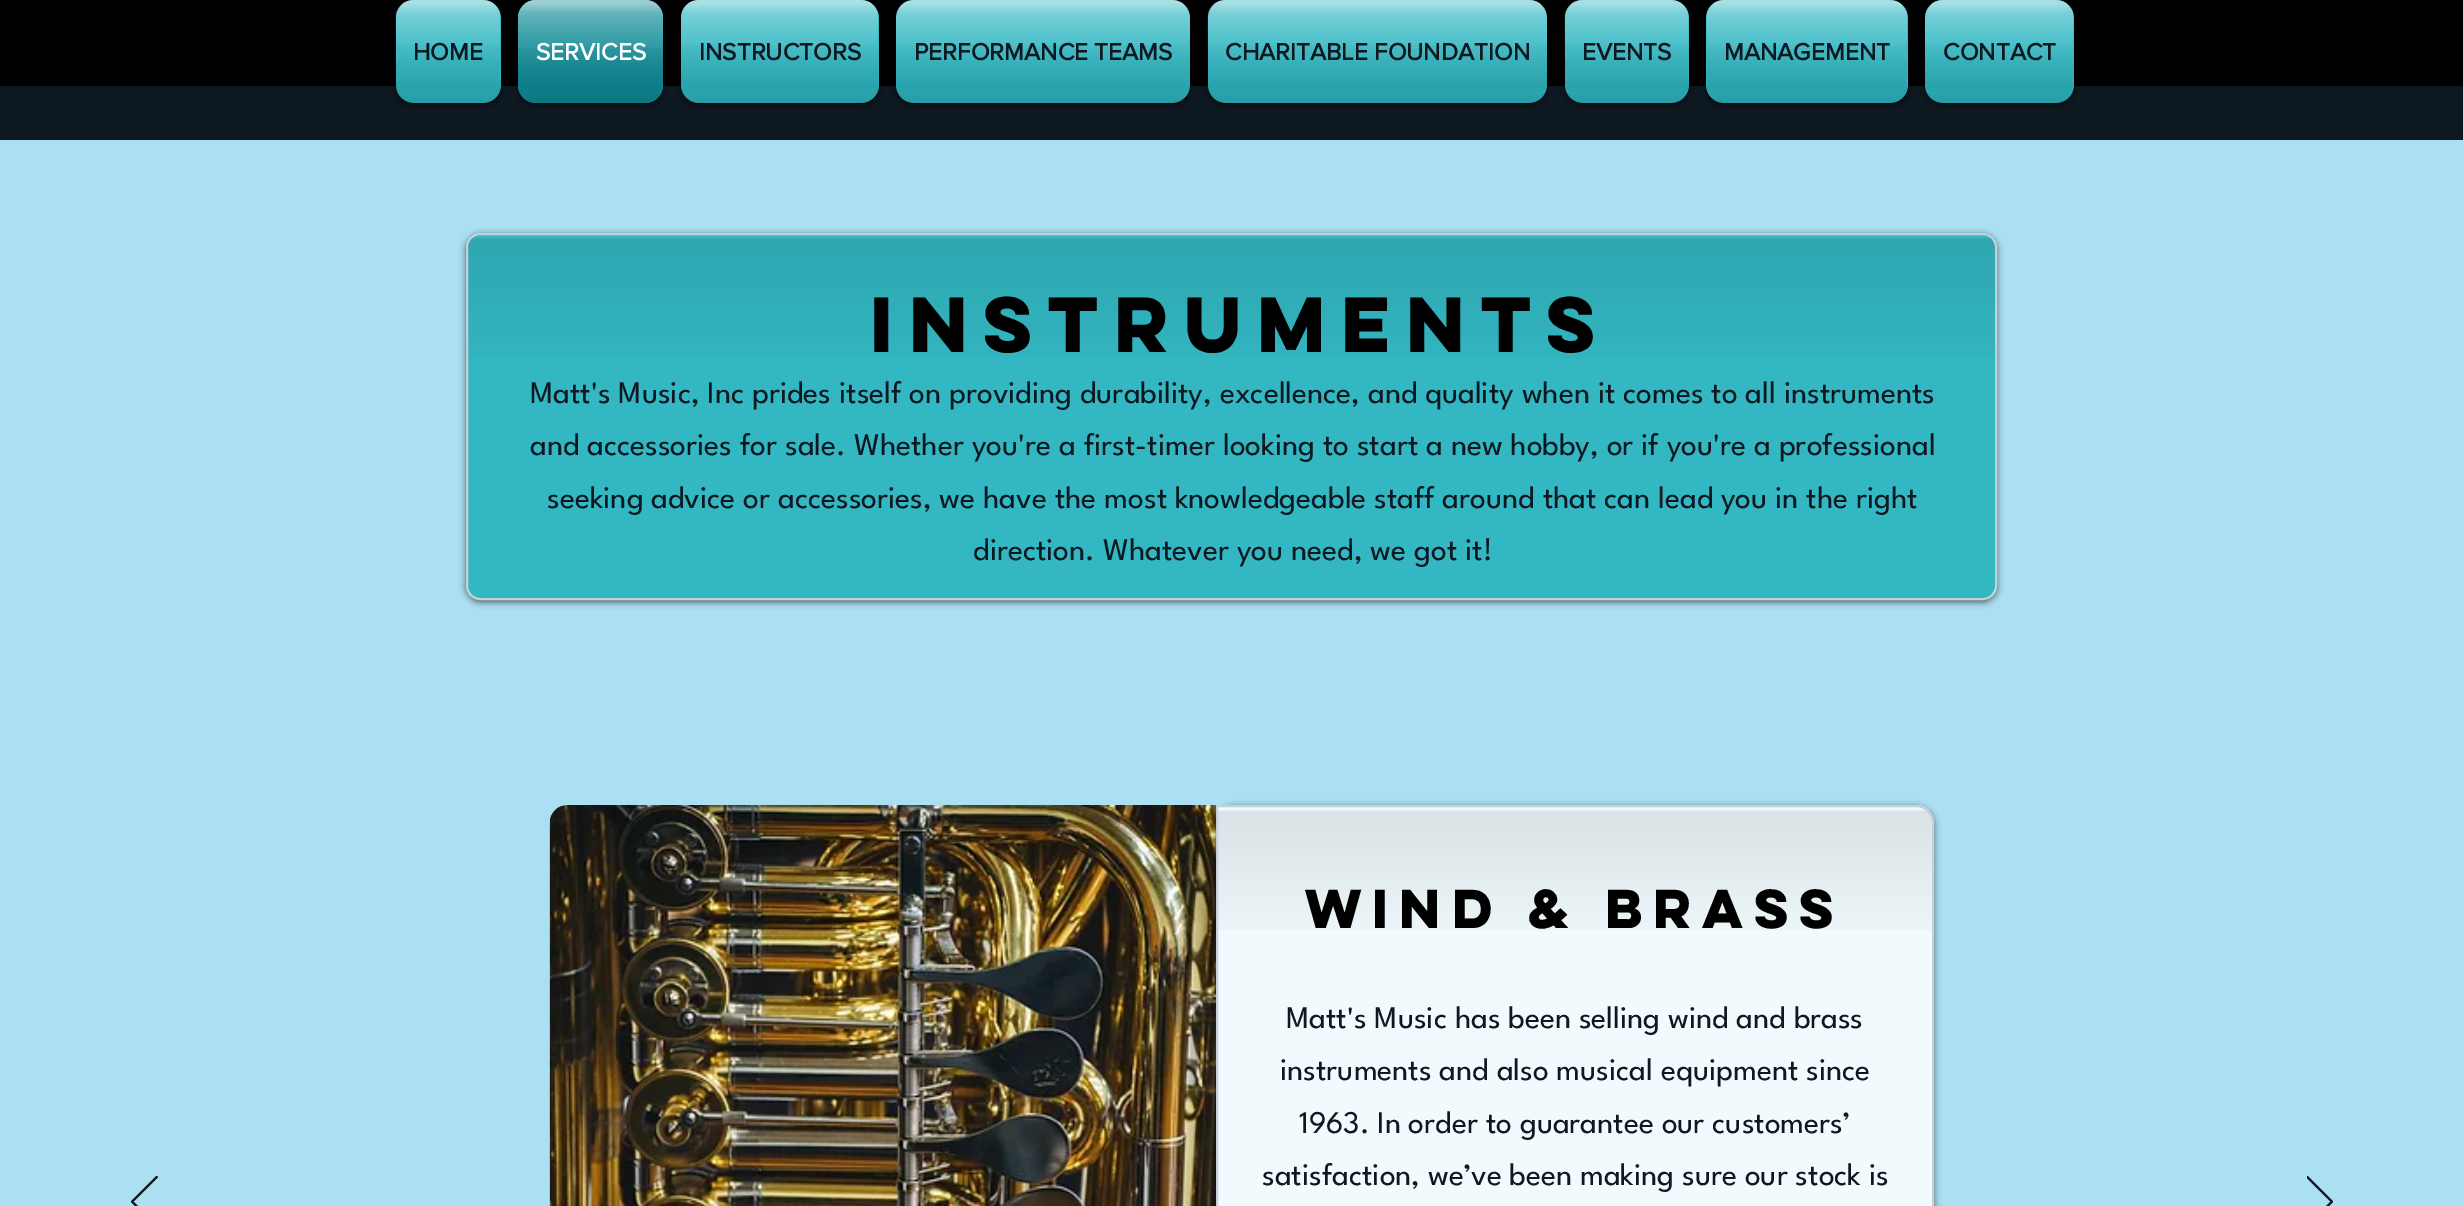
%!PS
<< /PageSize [2463 1206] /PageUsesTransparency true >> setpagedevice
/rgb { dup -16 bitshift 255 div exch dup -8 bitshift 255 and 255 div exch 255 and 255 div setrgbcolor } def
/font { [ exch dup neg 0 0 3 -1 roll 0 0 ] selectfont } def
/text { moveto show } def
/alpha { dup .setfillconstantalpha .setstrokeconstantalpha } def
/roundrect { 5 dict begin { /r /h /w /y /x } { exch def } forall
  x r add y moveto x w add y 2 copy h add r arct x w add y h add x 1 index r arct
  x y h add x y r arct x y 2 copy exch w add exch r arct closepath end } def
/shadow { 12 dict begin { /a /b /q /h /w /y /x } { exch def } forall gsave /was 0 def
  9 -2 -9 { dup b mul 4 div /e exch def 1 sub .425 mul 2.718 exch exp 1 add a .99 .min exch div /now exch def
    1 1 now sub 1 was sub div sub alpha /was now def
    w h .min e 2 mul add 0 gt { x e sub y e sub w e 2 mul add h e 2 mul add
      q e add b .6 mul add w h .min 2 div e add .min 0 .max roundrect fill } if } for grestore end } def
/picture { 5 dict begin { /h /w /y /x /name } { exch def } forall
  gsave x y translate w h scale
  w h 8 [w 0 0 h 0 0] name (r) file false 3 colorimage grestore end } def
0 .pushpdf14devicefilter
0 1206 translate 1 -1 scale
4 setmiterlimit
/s1 { /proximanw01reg-Bold 24.5 font 16#0E1821 rgb } def
/s2 { /proximanw01reg-Bold 24.5 font 16#FFFFFF rgb } def
/s3 { /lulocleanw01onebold-Bold 70 font 16#000000 rgb } def
/s4 { /LeagueSpartan-Regular 31.5 font 16#0E1821 rgb } def
/s5 { /lulocleanw01onebold-Bold 49 font 16#000000 rgb } def
16#ABE0F2 rgb
0 0 2463 1206 rectfill
16#000000 rgb
0 0 2463 86 rectfill
16#0E1821 rgb
0 86 2463 54 rectfill
16#000000 rgb
396 2 105 103 18 3.5 0.6 shadow
16#2EB6C1 rgb
396 0 105 103 18 roundrect fill
(pic1.raw) 395 0 106 80 picture
(pic2.raw) 396 45 105 58 picture
s1
(HOME) 413 60 text
16#000000 rgb
518 2 145 103 18 3.5 0.6 shadow
16#0F8B96 rgb
518 0 145 103 18 roundrect fill
(pic3.raw) 518 0 145 80 picture
(pic4.raw) 518 48 145 55 picture
s2
(SERVICES) 536 60 text
16#000000 rgb
681 2 198 103 18 3.5 0.6 shadow
16#2EB6C1 rgb
681 0 198 103 18 roundrect fill
(pic5.raw) 681 0 198 80 picture
(pic6.raw) 681 45 198 58 picture
s1
(INSTRUCTORS) 699 60 text
16#000000 rgb
896 2 294 103 18 3.5 0.6 shadow
16#2EB6C1 rgb
896 0 294 103 18 roundrect fill
(pic7.raw) 896 0 294 80 picture
(pic8.raw) 896 45 294 58 picture
s1
(PERFORMANCE TEAMS) 914 60 text
16#000000 rgb
1208 2 339 103 18 3.5 0.6 shadow
16#2EB6C1 rgb
1208 0 339 103 18 roundrect fill
(pic9.raw) 1207 0 340 80 picture
(pic10.raw) 1208 45 339 58 picture
s1
(CHARITABLE FOUNDATION) 1225 60 text
16#000000 rgb
1565 2 124 103 18 3.5 0.6 shadow
16#2EB6C1 rgb
1565 0 124 103 18 roundrect fill
(pic11.raw) 1564 0 125 80 picture
(pic12.raw) 1565 45 124 58 picture
s1
(EVENTS) 1582 60 text
16#000000 rgb
1706 2 202 103 18 3.5 0.6 shadow
16#2EB6C1 rgb
1706 0 202 103 18 roundrect fill
(pic13.raw) 1706 0 202 80 picture
(pic14.raw) 1706 45 202 58 picture
s1
(MANAGEMENT) 1724 60 text
16#000000 rgb
1925 2 149 103 18 3.5 0.6 shadow
16#2EB6C1 rgb
1925 0 149 103 18 roundrect fill
(pic15.raw) 1925 0 149 80 picture
(pic16.raw) 1925 45 149 58 picture
s1
(CONTACT) 1943 60 text
gsave
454 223 moveto 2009 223 lineto 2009 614 lineto 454 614 lineto closepath 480 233 moveto 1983 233 lineto 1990.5 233 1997 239.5 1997 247 curveto 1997 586 lineto 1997 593.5 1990.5 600 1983 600 curveto 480 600 lineto 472.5 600 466 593.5 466 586 curveto 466 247 lineto 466 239.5 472.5 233 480 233 curveto closepath eoclip newpath
16#000000 rgb
466 235 1531 367 14 3.5 0.6 shadow
grestore
0.96 alpha
16#2EB6C1 rgb
466 233 1531 367 14 roundrect fill
1 alpha
(pic17.raw) 466 238 1531 120 picture
16#C5D0D9 rgb
2 setlinewidth
467 234 1529 365 13 roundrect stroke
s3
(Instruments) 870 352 text
s4
(Matt's Music, Inc prides itself on providing durability, excellence, and quality when it comes to all instruments) 530 403 text
(and accessories for sale. Whether you're a first-timer looking to start a new hobby, or if you're a professional) 530 455 text
(seeking advice or accessories, we have the most knowledgeable staff around that can lead you in the right) 547 508 text
(direction. Whatever you need, we got it!) 973 560 text
(pic18.raw) 131 1176 27 30 picture
(pic19.raw) 549 805 667 401 picture
gsave
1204 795 moveto 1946 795 lineto 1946 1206 lineto 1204 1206 lineto closepath 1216 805 moveto 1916 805 lineto 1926 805 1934 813 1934 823 curveto 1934 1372 lineto 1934 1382 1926 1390 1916 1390 curveto 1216 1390 lineto closepath eoclip newpath
16#000000 rgb
1216 807 718 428 18 3.5 0.6 shadow
grestore
0.83 alpha
16#FFFFFF rgb
1216 805 moveto 1916 805 lineto 1926 805 1934 813 1934 823 curveto 1934 1206 lineto 1934 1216 1926 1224 1916 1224 curveto 1216 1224 lineto closepath fill
1 alpha
(pic20.raw) 1218 810 716 120 picture
16#C5D0D9 rgb
1217 806 moveto 1916 806 lineto 1925.5 806 1933 813.5 1933 823 curveto 1933 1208 lineto 1933 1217.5 1925.5 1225 1916 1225 curveto 1217 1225 lineto closepath stroke
s5
(Wind & Brass) 1305 928 text
s4
(Matt's Music has been selling wind and brass) 1286 1028 text
(instruments and also musical equipment since) 1280 1080 text
(1963. In order to guarantee our customers’) 1299 1133 text
(satisfaction, we’ve been making sure our stock is) 1262 1185 text
(pic21.raw) 2307 1176 26 30 picture
.poppdf14devicefilter showpage
